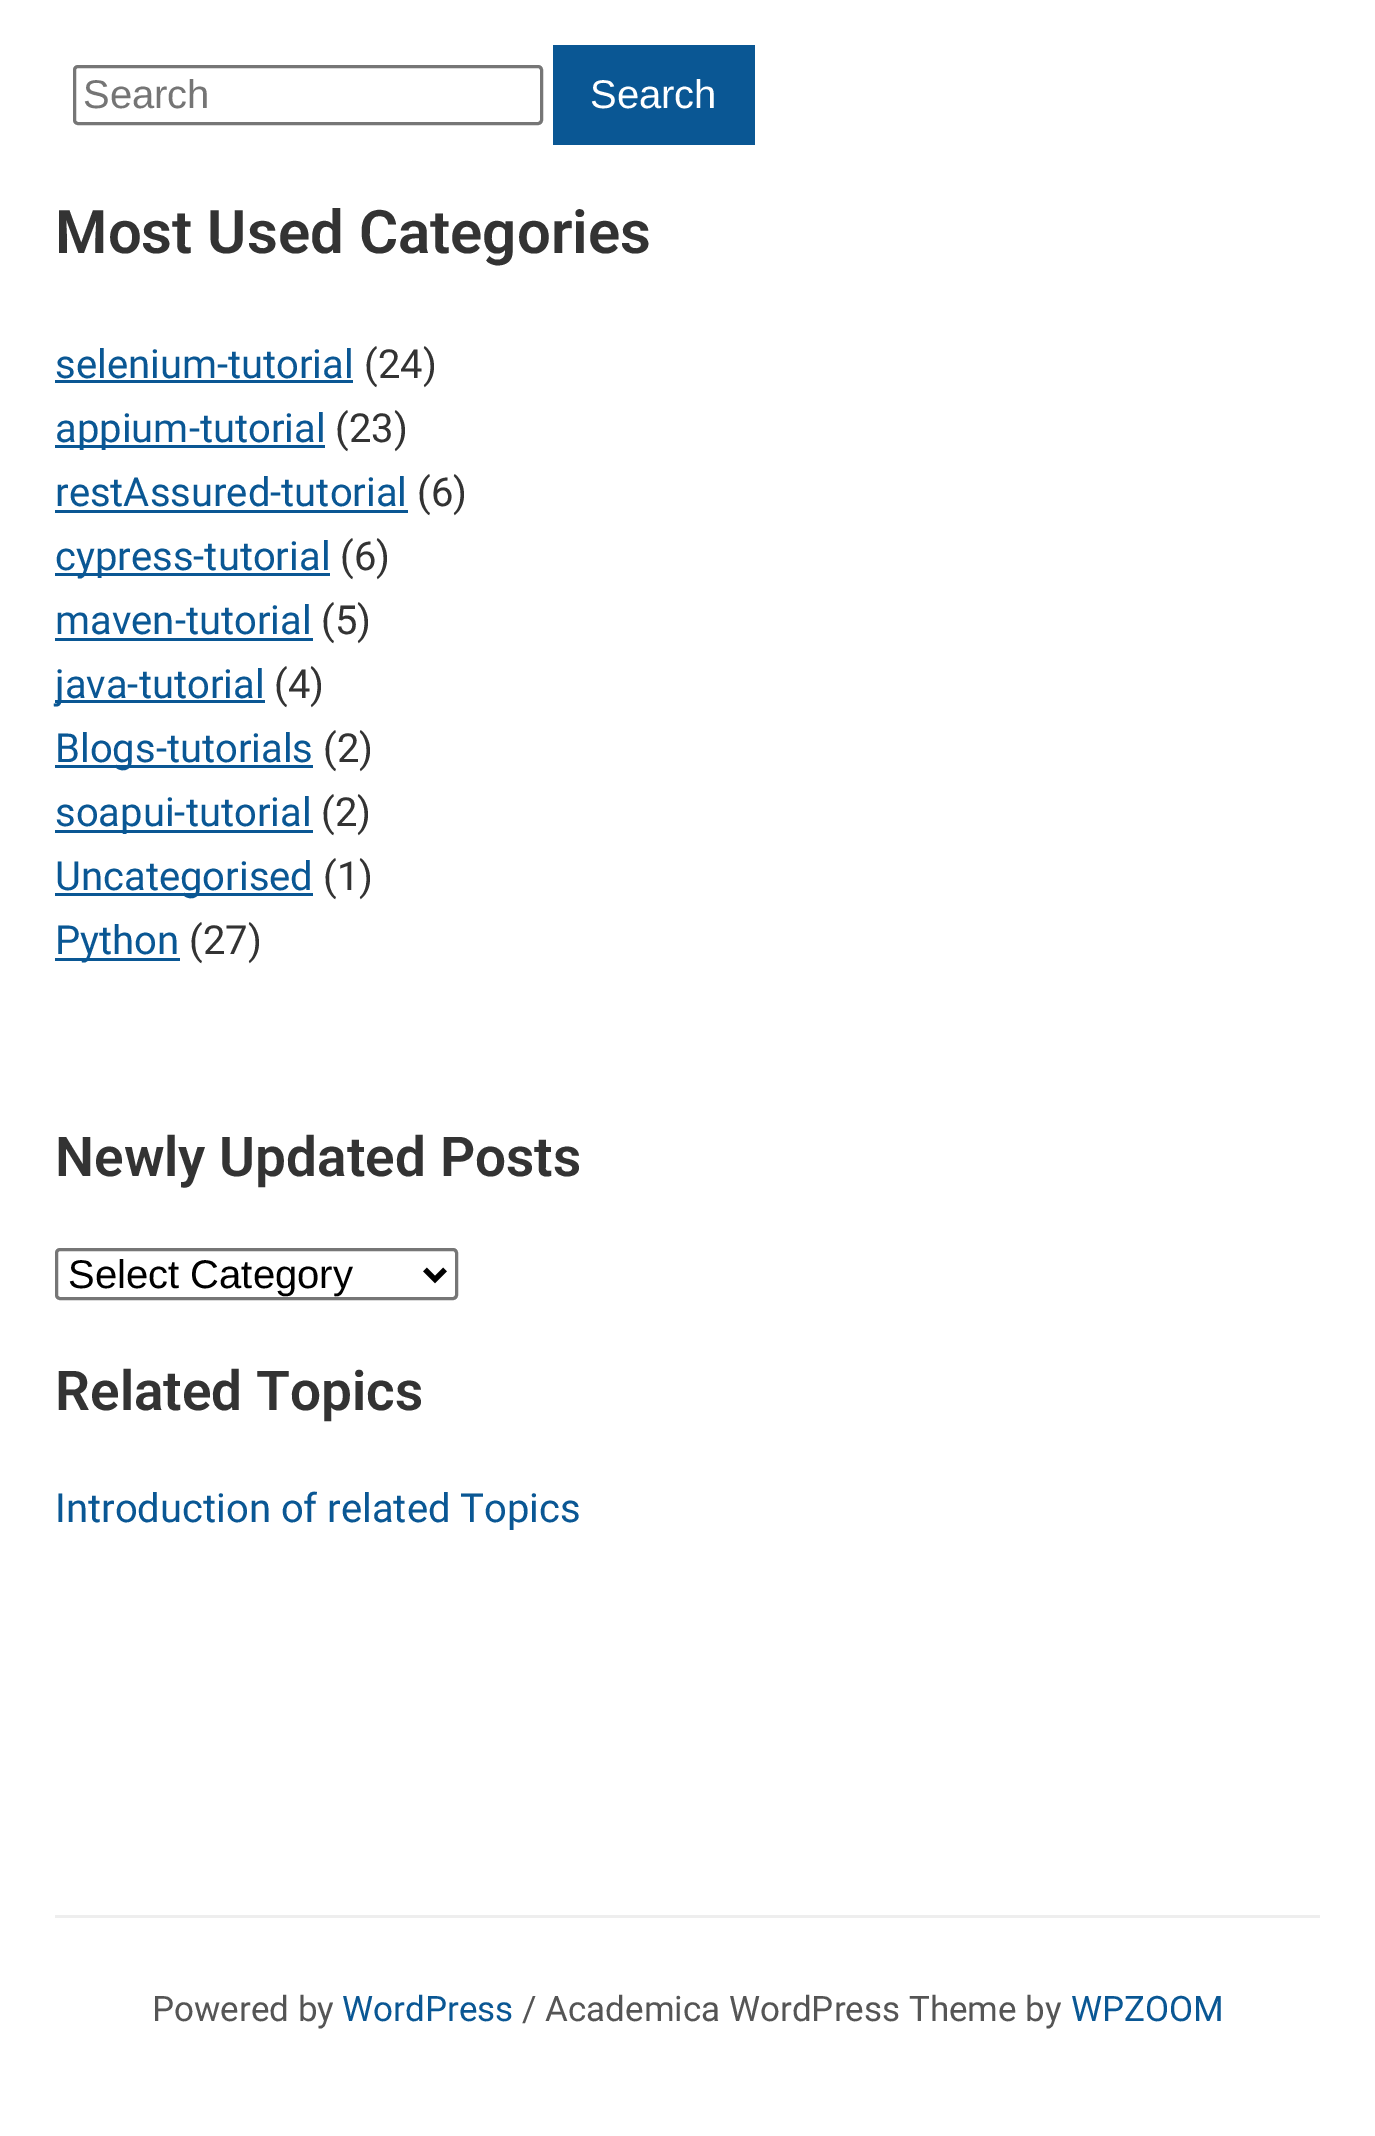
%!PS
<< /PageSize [1375 2136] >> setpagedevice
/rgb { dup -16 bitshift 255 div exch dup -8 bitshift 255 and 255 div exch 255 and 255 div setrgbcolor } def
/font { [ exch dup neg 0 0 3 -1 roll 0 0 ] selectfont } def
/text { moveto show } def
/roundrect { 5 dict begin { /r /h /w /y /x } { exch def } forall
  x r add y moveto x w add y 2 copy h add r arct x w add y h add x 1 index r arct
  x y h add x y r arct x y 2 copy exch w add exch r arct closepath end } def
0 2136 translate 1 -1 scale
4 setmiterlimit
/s1 { /LiberationSans-Regular 40 font 16#757575 rgb } def
/s2 { /LiberationSans-Regular 40 font 16#FFFFFF rgb } def
/s3 { /Roboto-SemiBold 60 font 16#333333 rgb } def
/s4 { /Roboto-Regular 40 font 16#0A5794 rgb } def
/s5 { /Roboto-Regular 40 font 16#333333 rgb } def
/s6 { /Roboto-SemiBold 55 font 16#333333 rgb } def
/s7 { /LiberationSans-Regular 40 font 16#000000 rgb } def
/s8 { /Roboto-Regular 35 font 16#555555 rgb } def
/s9 { /Roboto-Regular 35 font 16#0A5794 rgb } def
16#FFFFFF rgb
0 0 1375 2136 rectfill
16#767676 rgb
3 setlinewidth
74.5 66.5 467 57 3.5 roundrect stroke
s1
(Search) 83 108 text
16#0A5794 rgb
553 45 202 100 rectfill
s2
(Search) 590 108 text
s3
(Most Used Categories) 55 253 text
s4
(selenium-tutorial) 55 378 text
55 380 298 3 rectfill
s5
(\(24\)) 364 378 text
16#0A5794 rgb
55 445 270 3 rectfill
(appium-tutorial) 55 442 text
s5
(\(23\)) 335 442 text
s4
(restAssured-tutorial) 55 506 text
55 510 353 3 rectfill
s5
(\(6\)) 417 506 text
16#0A5794 rgb
55 573 275 3 rectfill
(cypress-tutorial) 55 570 text
s5
(\(6\)) 340 570 text
s4
(maven-tutorial) 55 634 text
55 638 258 3 rectfill
s5
(\(5\)) 321 634 text
16#0A5794 rgb
55 700 210 3 rectfill
(java-tutorial) 55 698 text
s5
(\(4\)) 274 698 text
16#0A5794 rgb
55 765 258 3 rectfill
(Blogs-tutorials) 55 762 text
s5
(\(2\)) 323 762 text
16#0A5794 rgb
55 830 258 3 rectfill
(soapui-tutorial) 55 826 text
s5
(\(2\)) 321 826 text
16#0A5794 rgb
55 893 258 3 rectfill
(Uncategorised) 55 890 text
s5
(\(1\)) 323 890 text
16#0A5794 rgb
55 958 125 3 rectfill
(Python) 55 954 text
s5
(\(27\)) 189 954 text
s6
(Newly Updated Posts) 55 1176 text
16#767676 rgb
56.5 1249.5 400 49 3.5 roundrect stroke
16#000000 rgb
5 setlinewidth
425 1269.5 moveto 435 1279.5 lineto 445 1269.5 lineto stroke
s7
(Select Category) 68 1288 text
s6
(Related Topics) 55 1410 text
s4
(Introduction of related Topics) 55 1522 text
16#EEEEEE rgb
55 1915 1265 3 rectfill
s8
(Powered by) 152 2021 text
s9
(WordPress) 342 2021 text
s8
(/ Academica WordPress Theme by) 522 2021 text
s9
(WPZOOM) 1071 2021 text
showpage
